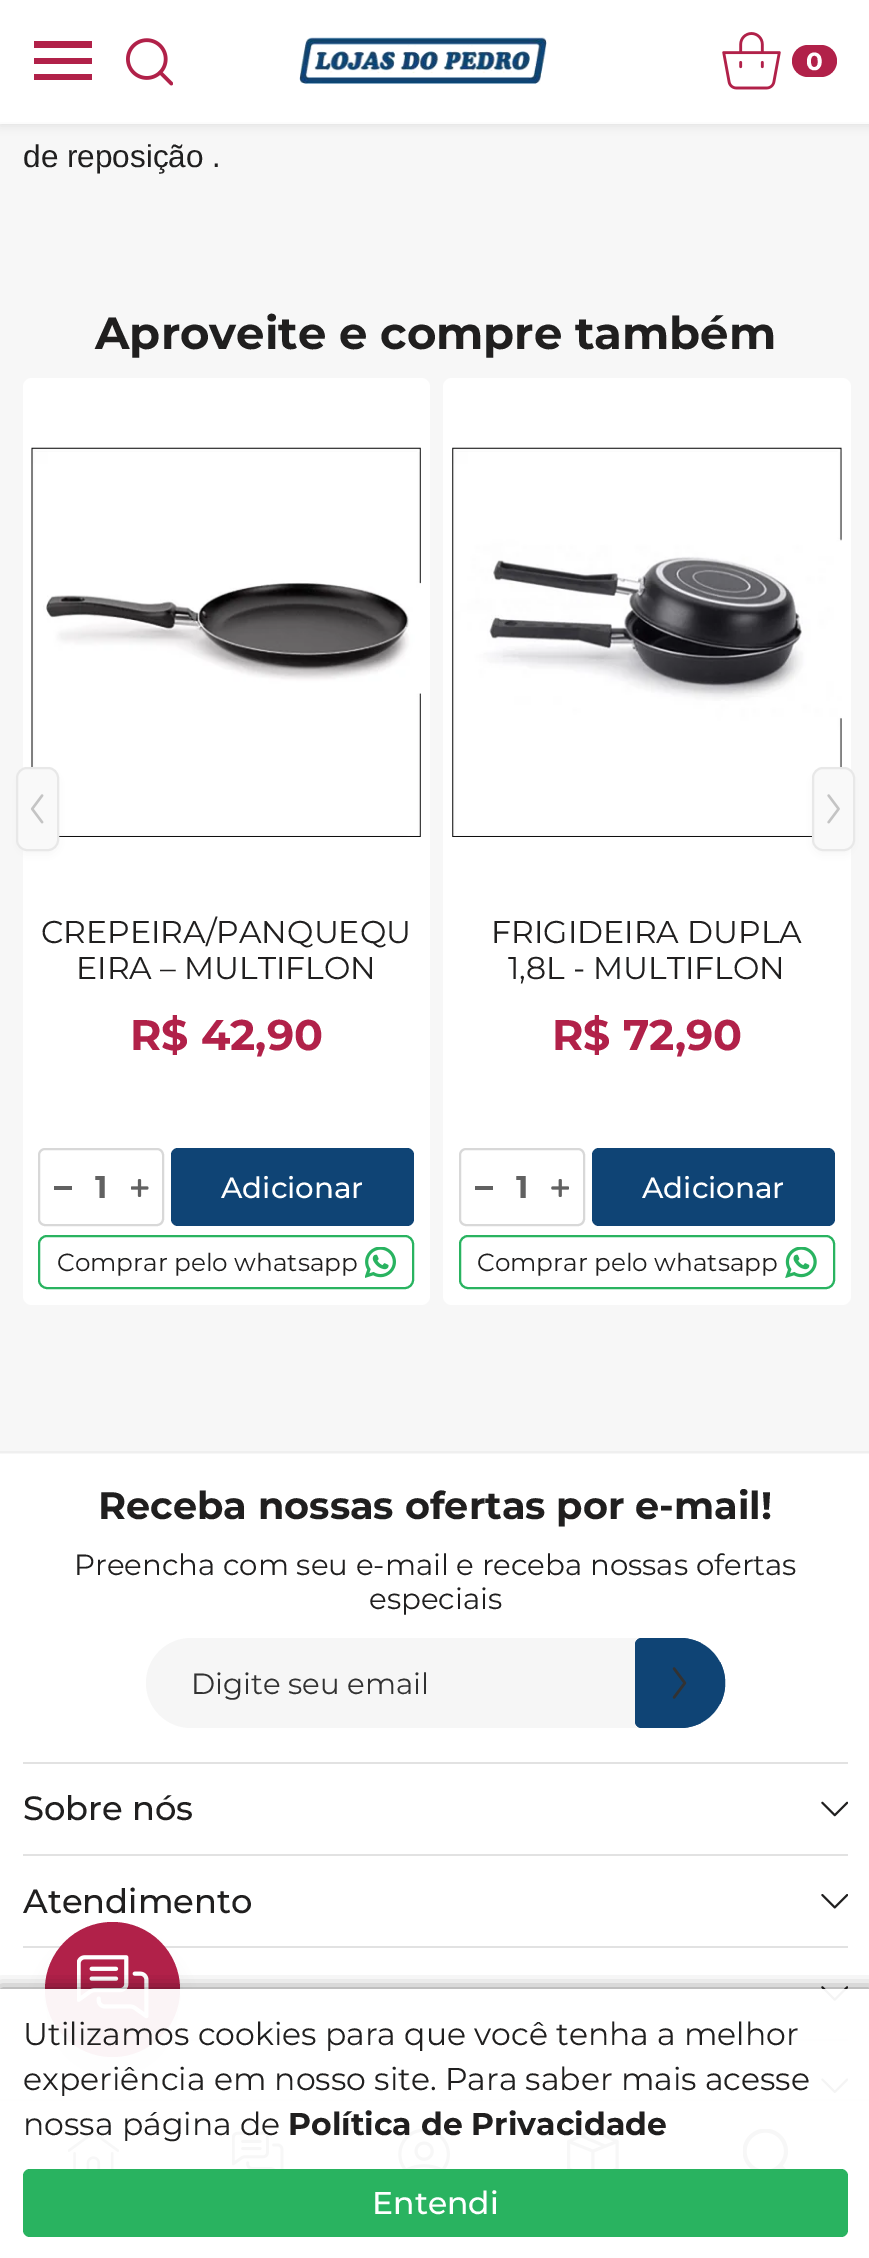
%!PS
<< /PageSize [869 2258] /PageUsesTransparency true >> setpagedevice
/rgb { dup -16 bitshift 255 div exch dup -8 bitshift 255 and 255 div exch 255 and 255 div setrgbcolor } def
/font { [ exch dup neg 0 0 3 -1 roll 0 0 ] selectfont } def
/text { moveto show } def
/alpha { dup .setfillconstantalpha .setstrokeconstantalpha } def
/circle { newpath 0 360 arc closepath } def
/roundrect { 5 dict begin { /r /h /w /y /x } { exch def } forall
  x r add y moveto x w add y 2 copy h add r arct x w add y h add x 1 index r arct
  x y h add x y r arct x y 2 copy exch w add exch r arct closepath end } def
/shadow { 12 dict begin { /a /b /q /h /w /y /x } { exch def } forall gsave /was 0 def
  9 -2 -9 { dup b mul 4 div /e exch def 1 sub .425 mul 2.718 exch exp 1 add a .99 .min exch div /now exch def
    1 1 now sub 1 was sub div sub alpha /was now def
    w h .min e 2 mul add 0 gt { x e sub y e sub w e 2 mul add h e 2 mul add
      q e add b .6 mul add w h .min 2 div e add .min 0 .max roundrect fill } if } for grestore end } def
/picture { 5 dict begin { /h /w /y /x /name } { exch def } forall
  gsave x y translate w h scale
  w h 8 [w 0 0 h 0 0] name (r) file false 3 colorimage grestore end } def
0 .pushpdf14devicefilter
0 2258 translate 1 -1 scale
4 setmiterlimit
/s1 { /Montserrat-Bold 24.75 font 16#FFFFFF rgb } def
/s2 { /LiberationSans-Regular 31.5 font 16#201F1F rgb } def
/s3 { /Montserrat-Bold 45 font 16#201F1F rgb } def
/s4 { /Montserrat-Regular 31.5 font 16#201F1F rgb } def
/s5 { /Montserrat-Bold 42.75 font 16#B12149 rgb } def
/s6 { /Montserrat-Bold 31.5 font 16#616161 rgb } def
/s7 { /Montserrat-Medium 29.25 font 16#FFFFFF rgb } def
/s8 { /Montserrat-Regular 24.75 font 16#201F1F rgb } def
/s9 { /Montserrat-Bold 38.25 font 16#201F1F rgb } def
/s10 { /Montserrat-Regular 29.25 font 16#201F1F rgb } def
/s11 { /Montserrat-Regular 29.25 font 16#323232 rgb } def
/s12 { /Montserrat-Medium 33.75 font 16#201F1F rgb } def
/s13 { /Montserrat-Bold 31.5 font 16#201F1F rgb } def
/s14 { /Montserrat-Medium 31.5 font 16#FFFFFF rgb } def
16#F7F7F7 rgb
0 0 869 2258 rectfill
16#525252 rgb
0 2 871 124 0 4.5 0.13 shadow
16#FFFFFF rgb
0 0 869 122 rectfill
16#FCFCFC rgb
0 122 869 2 rectfill
16#B12149 rgb
34 74 58 6 rectfill
34 58 58 6 rectfill
34 41 58 7 rectfill
(pic1.raw) 126 38 47 48 picture
(pic2.raw) 299 37 248 47 picture
(pic3.raw) 722 32 59 58 picture
792 45 45 32 16 roundrect fill
s1
(0) 806 70 text
s2
(de reposição .) 23 167 text
s3
(Aproveite e compre também) 95 349 text
16#FFFFFF rgb
23 378 407 927 9 roundrect fill
(pic6.raw) 31 447 390 390 picture
16#CDCDCD rgb
16 772 43 83 11 5 0.16 shadow
16#F9F9F9 rgb
17 768 41 82 10 roundrect gsave fill grestore
16#E8E8E8 rgb
2 setlinewidth
stroke
(pic4.raw) 30 794 14 30 picture
16#FFFFFF rgb
443 378 408 927 9 roundrect fill
(pic9.raw) 452 447 390 390 picture
16#CDCDCD rgb
812 772 43 83 11 5 0.16 shadow
16#F9F9F9 rgb
813 768 41 82 10 roundrect gsave fill grestore
16#E8E8E8 rgb
stroke
(pic5.raw) 827 794 13 30 picture
s4
(CREPEIRA/PANQUEQU) 41 943 text
(EIRA – MULTIFLON) 76 979 text
s5
(R$ 42,90) 130 1050 text
16#D8D8D8 rgb
39 1149 124 76 6 roundrect stroke
16#616161 rgb
54 1186 18 4 rectfill
s6
(1) 95 1198 text
(pic7.raw) 131 1179 18 18 picture
16#0F4475 rgb
171 1148 243 78 7 roundrect fill
s7
(Adicionar) 221 1198 text
16#29B360 rgb
39 1236 374 52 8 roundrect stroke
s8
(Comprar pelo whatsapp) 57 1271 text
(pic8.raw) 365 1247 31 31 picture
s4
(FRIGIDEIRA DUPLA) 491 943 text
(1,8L - MULTIFLON) 508 979 text
s5
(R$ 72,90) 552 1050 text
16#D8D8D8 rgb
460 1149 124 76 6 roundrect stroke
16#616161 rgb
475 1186 18 4 rectfill
s6
(1) 516 1198 text
(pic10.raw) 551 1179 18 18 picture
16#0F4475 rgb
592 1148 243 78 7 roundrect fill
s7
(Adicionar) 642 1198 text
16#29B360 rgb
460 1236 374 52 8 roundrect stroke
s8
(Comprar pelo whatsapp) 477 1271 text
(pic11.raw) 785 1247 32 31 picture
16#EFEFEF rgb
0 1451 869 2 rectfill
16#FFFFFF rgb
0 1454 869 645 rectfill
s9
(Receba nossas ofertas por e-mail!) 98 1519 text
s10
(Preencha com seu e-mail e receba nossas ofertas) 74 1575 text
(especiais) 369 1609 text
16#F6F6F6 rgb
146 1638 579 90 45 roundrect fill
s11
(Digite seu email) 191 1694 text
16#0F4475 rgb
642 1638 moveto 680 1638 lineto 705 1638 725 1658 725 1683 curveto 725 1708 705 1728 680 1728 curveto 642 1728 lineto 638 1728 635 1725 635 1721 curveto 635 1645 lineto 635 1641 638 1638 642 1638 curveto closepath fill
642 1638 moveto 638 1638 635 1641 635 1645 curveto 635 1721 lineto 635 1725 638 1728 642 1728 curveto 680 1728 lineto 687 1728 694 1726 701 1723 curveto 642 1723 lineto 641 1723 640 1722 640 1721 curveto 640 1645 lineto 640 1644 641 1643 642 1643 curveto 701 1643 lineto 694 1640 687 1638 680 1638 curveto closepath 720 1662 moveto 720 1704 lineto 727 1691 727 1675 720 1662 curveto closepath eofill
(pic12.raw) 672 1667 15 32 picture
16#E2E2E2 rgb
23 1762 825 2 rectfill
s12
(Sobre nós) 23 1820 text
(pic13.raw) 821 1801 27 16 picture
16#E2E2E2 rgb
23 1854 825 2 rectfill
s12
(Atendimento) 23 1913 text
(pic14.raw) 821 1894 27 15 picture
16#E2E2E2 rgb
23 1946 825 2 rectfill
(pic15.raw) 821 1986 27 15 picture
23 2039 825 2 rectfill
(pic16.raw) 821 2078 27 15 picture
16#676767 rgb
45 1944 135 135 67.5 9 0.1 shadow
16#000000 rgb
45 1926 135 135 67.5 1 0.04 shadow
16#B12149 rgb
112.5 1989.5 67.5 circle fill
(pic17.raw) 77 1955 72 64 picture
16#525252 rgb
0 2099 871 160 0 4.5 0.08 shadow
16#FFFFFF rgb
0 2101 869 157 rectfill
16#E2E2E2 rgb
0 2099 869 2 rectfill
(pic18.raw) 68 2131 51 38 picture
(pic19.raw) 232 2131 52 38 picture
(pic20.raw) 398 2129 52 40 picture
(pic21.raw) 567 2129 52 40 picture
(pic22.raw) 743 2129 46 40 picture
gsave
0 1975 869 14 rectclip
16#000000 rgb
0 1989 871 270 0 8 0.5 shadow
grestore
0.95 alpha
16#FFFFFF rgb
0 1989 869 180 rectfill
1 alpha
s4
(Utilizamos cookies para que você tenha a melhor) 23 2045 text
(experiência em nosso site. Para saber mais acesse) 23 2090 text
(nossa página de) 23 2135 text
s13
(Política de Privacidade) 288 2135 text
16#29B360 rgb
23 2169 825 68 7 roundrect fill
s14
(Entendi) 372 2214 text
.poppdf14devicefilter showpage
